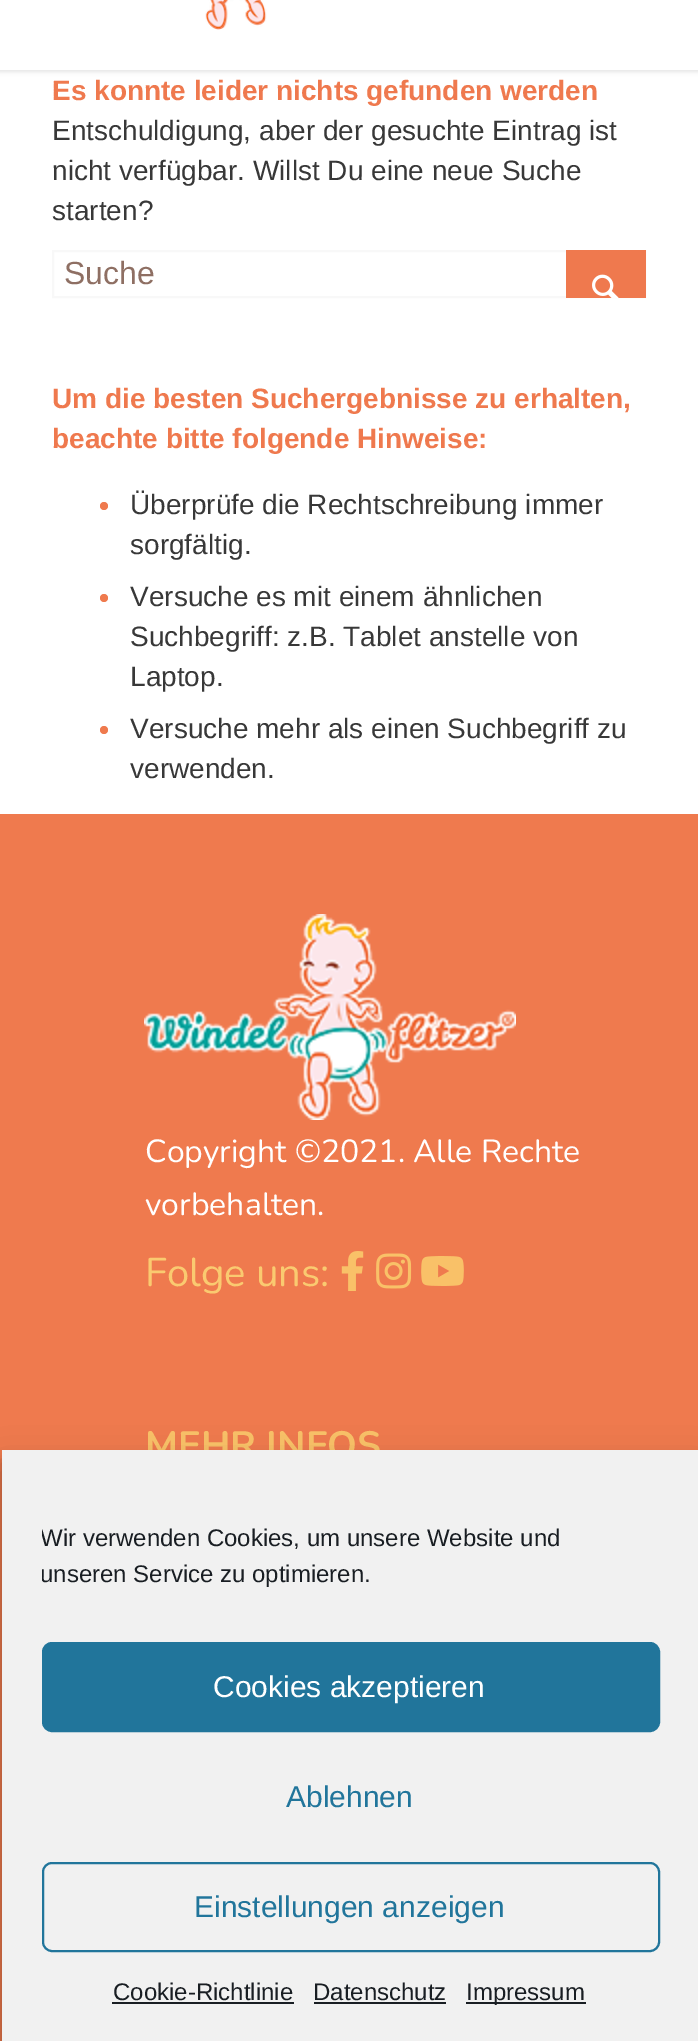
%!PS
<< /PageSize [698 2041] /PageUsesTransparency true >> setpagedevice
/rgb { dup -16 bitshift 255 div exch dup -8 bitshift 255 and 255 div exch 255 and 255 div setrgbcolor } def
/font { [ exch dup neg 0 0 3 -1 roll 0 0 ] selectfont } def
/text { moveto show } def
/alpha { dup .setfillconstantalpha .setstrokeconstantalpha } def
/circle { newpath 0 360 arc closepath } def
/roundrect { 5 dict begin { /r /h /w /y /x } { exch def } forall
  x r add y moveto x w add y 2 copy h add r arct x w add y h add x 1 index r arct
  x y h add x y r arct x y 2 copy exch w add exch r arct closepath end } def
/shadow { 12 dict begin { /a /b /q /h /w /y /x } { exch def } forall gsave /was 0 def
  9 -2 -9 { dup b mul 4 div /e exch def 1 sub .425 mul 2.718 exch exp 1 add a .99 .min exch div /now exch def
    1 1 now sub 1 was sub div sub alpha /was now def
    w h .min e 2 mul add 0 gt { x e sub y e sub w e 2 mul add h e 2 mul add
      q e add b .6 mul add w h .min 2 div e add .min 0 .max roundrect fill } if } for grestore end } def
/picture { 5 dict begin { /h /w /y /x /name } { exch def } forall
  gsave x y translate w h scale
  w h 8 [w 0 0 h 0 0] name (r) file false 3 colorimage grestore end } def
0 .pushpdf14devicefilter
0 2041 translate 1 -1 scale
4 setmiterlimit
/s1 { /LiberationSans-Bold 28 font 16#EF794E rgb } def
/s2 { /LiberationSans-Regular 28 font 16#383838 rgb } def
/s3 { /LiberationSans-Regular 32 font 16#8E6F63 rgb } def
/s4 { /Nunito-Regular 32 font 16#FFFFFF rgb } def
/s5 { /Nunito-Regular 40 font 16#FACA70 rgb } def
/s6 { /Nunito-Bold 38 font 16#F9C168 rgb } def
/s7 { /LiberationSans-Regular 24 font 16#191E23 rgb } def
/s8 { /LiberationSans-Regular 30 font 16#FFFFFF rgb } def
/s9 { /LiberationSans-Regular 30 font 16#21759B rgb } def
16#FFFFFF rgb
0 0 698 2041 rectfill
16#000000 rgb
-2 -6 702 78 0 2 0.1 shadow
16#FFFFFF rgb
0 0 698 70 rectfill
(pic1.raw) 205 0 62 30 picture
s1
(Es konnte leider nichts gefunden werden) 52 100 text
s2
(Entschuldigung, aber der gesuchte Eintrag ist) 52 140 text
(nicht verfügbar. Willst Du eine neue Suche) 52 180 text
(starten?) 52 220 text
16#F8F8F8 rgb
2 setlinewidth
53 251 592 46 rectstroke
s3
(Suche) 64 284 text
16#EF794E rgb
566 250 80 48 rectfill
(pic2.raw) 592 274 27 24 picture
s1
(Um die besten Suchergebnisse zu erhalten,) 52 408 text
(beachte bitte folgende Hinweise:) 52 448 text
16#EF7A4E rgb
104 506 4 circle fill
s2
(Überprüfe die Rechtschreibung immer) 130 514 text
(sorgfältig.) 130 554 text
16#EF7A4E rgb
104 598 4 circle fill
s2
(Versuche es mit einem ähnlichen) 130 606 text
(Suchbegriff: z.B. Tablet anstelle von) 130 646 text
(Laptop.) 130 686 text
16#EF7A4E rgb
104 730 4 circle fill
s2
(Versuche mehr als einen Suchbegriff zu) 130 738 text
(verwenden.) 130 778 text
16#EF7A4E rgb
0 814 698 1227 rectfill
(pic3.raw) 144 914 372 206 picture
s4
(Copyright ©2021. Alle Rechte) 145 1162 text
(vorbehalten.) 145 1215 text
s5
(Folge uns:) 145 1286 text
(pic4.raw) 341 1251 23 40 picture
(pic5.raw) 376 1253 36 36 picture
(pic6.raw) 421 1256 43 30 picture
s6
(MEHR INFOS) 145 1458 text
16#000000 rgb
2 1462 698 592 0 6 0.23 shadow
2 1470 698 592 0 20 0.19 shadow
16#F1F1F1 rgb
2 1450 696 591 rectfill
gsave
42 1520 618 82 rectclip
s7
(Wir verwenden Cookies, um unsere Website und) 40 1546 text
(unseren Service zu optimieren.) 40 1582 text
grestore
16#21759B rgb
43 1643 616 88 9 roundrect gsave fill grestore
stroke
s8
(Cookies akzeptieren) 213 1697 text
s9
(Ablehnen) 286 1807 text
43 1863 616 88 9 roundrect stroke
(Einstellungen anzeigen) 194 1917 text
s7
(Cookie-Richtlinie) 113 2000 text
112 2002 182 2 rectfill
(Datenschutz) 313 2000 text
314 2002 132 2 rectfill
466 2002 120 2 rectfill
(Impressum) 466 2000 text
.poppdf14devicefilter showpage
